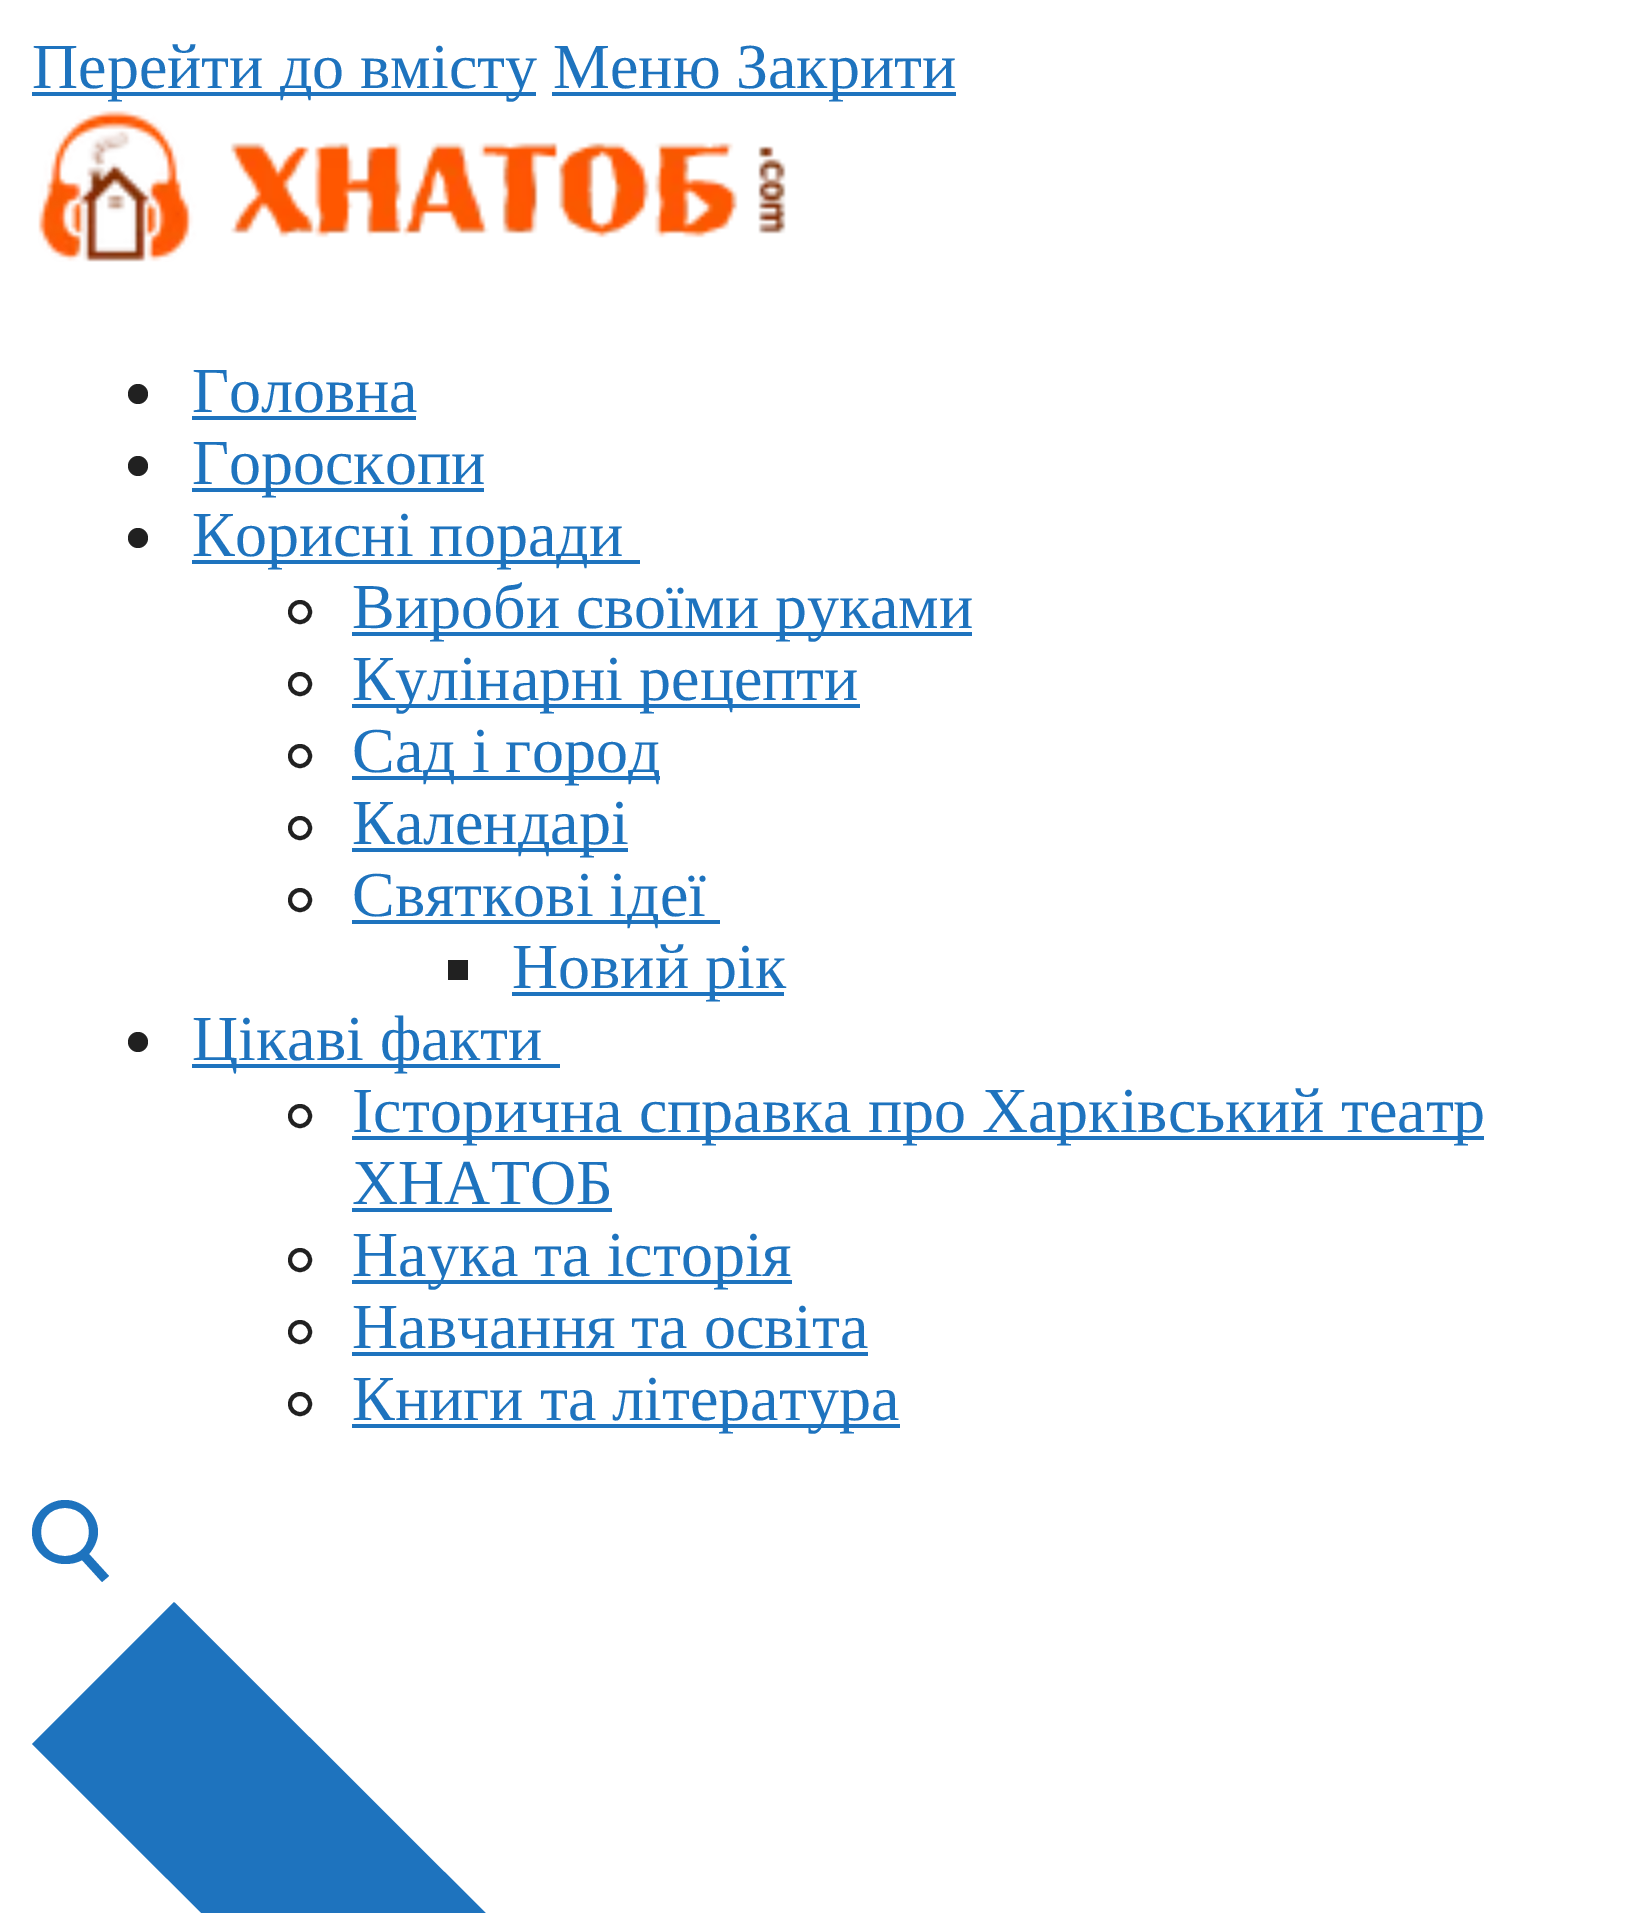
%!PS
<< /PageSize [1645 1913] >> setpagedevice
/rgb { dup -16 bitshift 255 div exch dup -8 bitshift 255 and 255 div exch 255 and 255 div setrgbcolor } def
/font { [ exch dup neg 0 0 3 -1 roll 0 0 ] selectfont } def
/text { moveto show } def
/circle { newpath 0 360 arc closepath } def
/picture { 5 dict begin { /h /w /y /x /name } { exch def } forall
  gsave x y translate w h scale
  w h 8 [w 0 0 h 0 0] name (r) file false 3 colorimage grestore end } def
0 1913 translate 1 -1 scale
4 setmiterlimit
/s1 { /LiberationSerif-Regular 64 font 16#1E73BE rgb } def
16#FFFFFF rgb
0 0 1645 1913 rectfill
16#1E73BE rgb
32 92 504 4 rectfill
s1
(Перейти до вмісту Меню) 32 88 text
552 92 404 4 rectfill
(Закрити) 736 88 text
(pic1.raw) 38 110 748 152 picture
16#212121 rgb
138 394 10 circle fill
s1
(Головна) 192 412 text
192 416 224 4 rectfill
16#212121 rgb
138 466 10 circle fill
16#1E73BE rgb
192 488 292 4 rectfill
(Гороскопи) 192 484 text
16#212121 rgb
138 538 10 circle fill
16#1E73BE rgb
192 560 448 4 rectfill
(Корисні поради) 192 556 text
16#212121 rgb
4 setlinewidth
300 612 10 circle stroke
16#1E73BE rgb
352 632 620 4 rectfill
(Вироби своїми руками) 352 628 text
16#212121 rgb
300 684 10 circle stroke
16#1E73BE rgb
352 704 508 4 rectfill
(Кулінарні рецепти) 352 700 text
16#212121 rgb
300 756 10 circle stroke
16#1E73BE rgb
352 776 308 4 rectfill
(Сад і город) 352 772 text
16#212121 rgb
300 828 10 circle stroke
16#1E73BE rgb
352 848 276 4 rectfill
(Календарі) 352 844 text
16#212121 rgb
300 900 10 circle stroke
16#1E73BE rgb
352 920 352 4 rectfill
(Святкові ідеї) 352 916 text
704 920 16 4 rectfill
16#212121 rgb
448 960 20 20 rectfill
16#1E73BE rgb
512 992 272 4 rectfill
(Новий рік) 512 988 text
16#212121 rgb
138 1042 10 circle fill
16#1E73BE rgb
192 1064 368 4 rectfill
(Цікаві факти) 192 1060 text
16#212121 rgb
300 1116 10 circle stroke
16#1E73BE rgb
352 1136 1132 4 rectfill
(Історична справка про Харківський театр) 352 1132 text
(ХНАТОБ) 352 1204 text
352 1208 260 4 rectfill
16#212121 rgb
300 1260 10 circle stroke
16#1E73BE rgb
352 1280 440 4 rectfill
(Наука та історія) 352 1276 text
16#212121 rgb
300 1332 10 circle stroke
s1
(Навчання та освіта) 352 1348 text
352 1352 516 4 rectfill
16#212121 rgb
300 1404 10 circle stroke
16#1E73BE rgb
352 1424 548 4 rectfill
(Книги та література) 352 1420 text
82 1560 moveto 77 1563 71 1564 65 1564 curveto 47 1564 32 1550 32 1532 curveto 32 1515 47 1500 65 1500 curveto 83 1500 98 1515 98 1532 curveto 98 1540 94 1548 89 1554 curveto 109 1576 lineto 102 1582 lineto closepath 65 1556 moveto 97 1556 97 1508 65 1508 curveto 33 1508 33 1556 65 1556 curveto closepath eofill
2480 1744 moveto 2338 1602 lineto 1256 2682 lineto 174 1602 lineto 32 1744 lineto 1114 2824 lineto 32 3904 lineto 174 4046 lineto 1256 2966 lineto 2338 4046 lineto 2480 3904 lineto 1398 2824 lineto closepath fill
showpage
